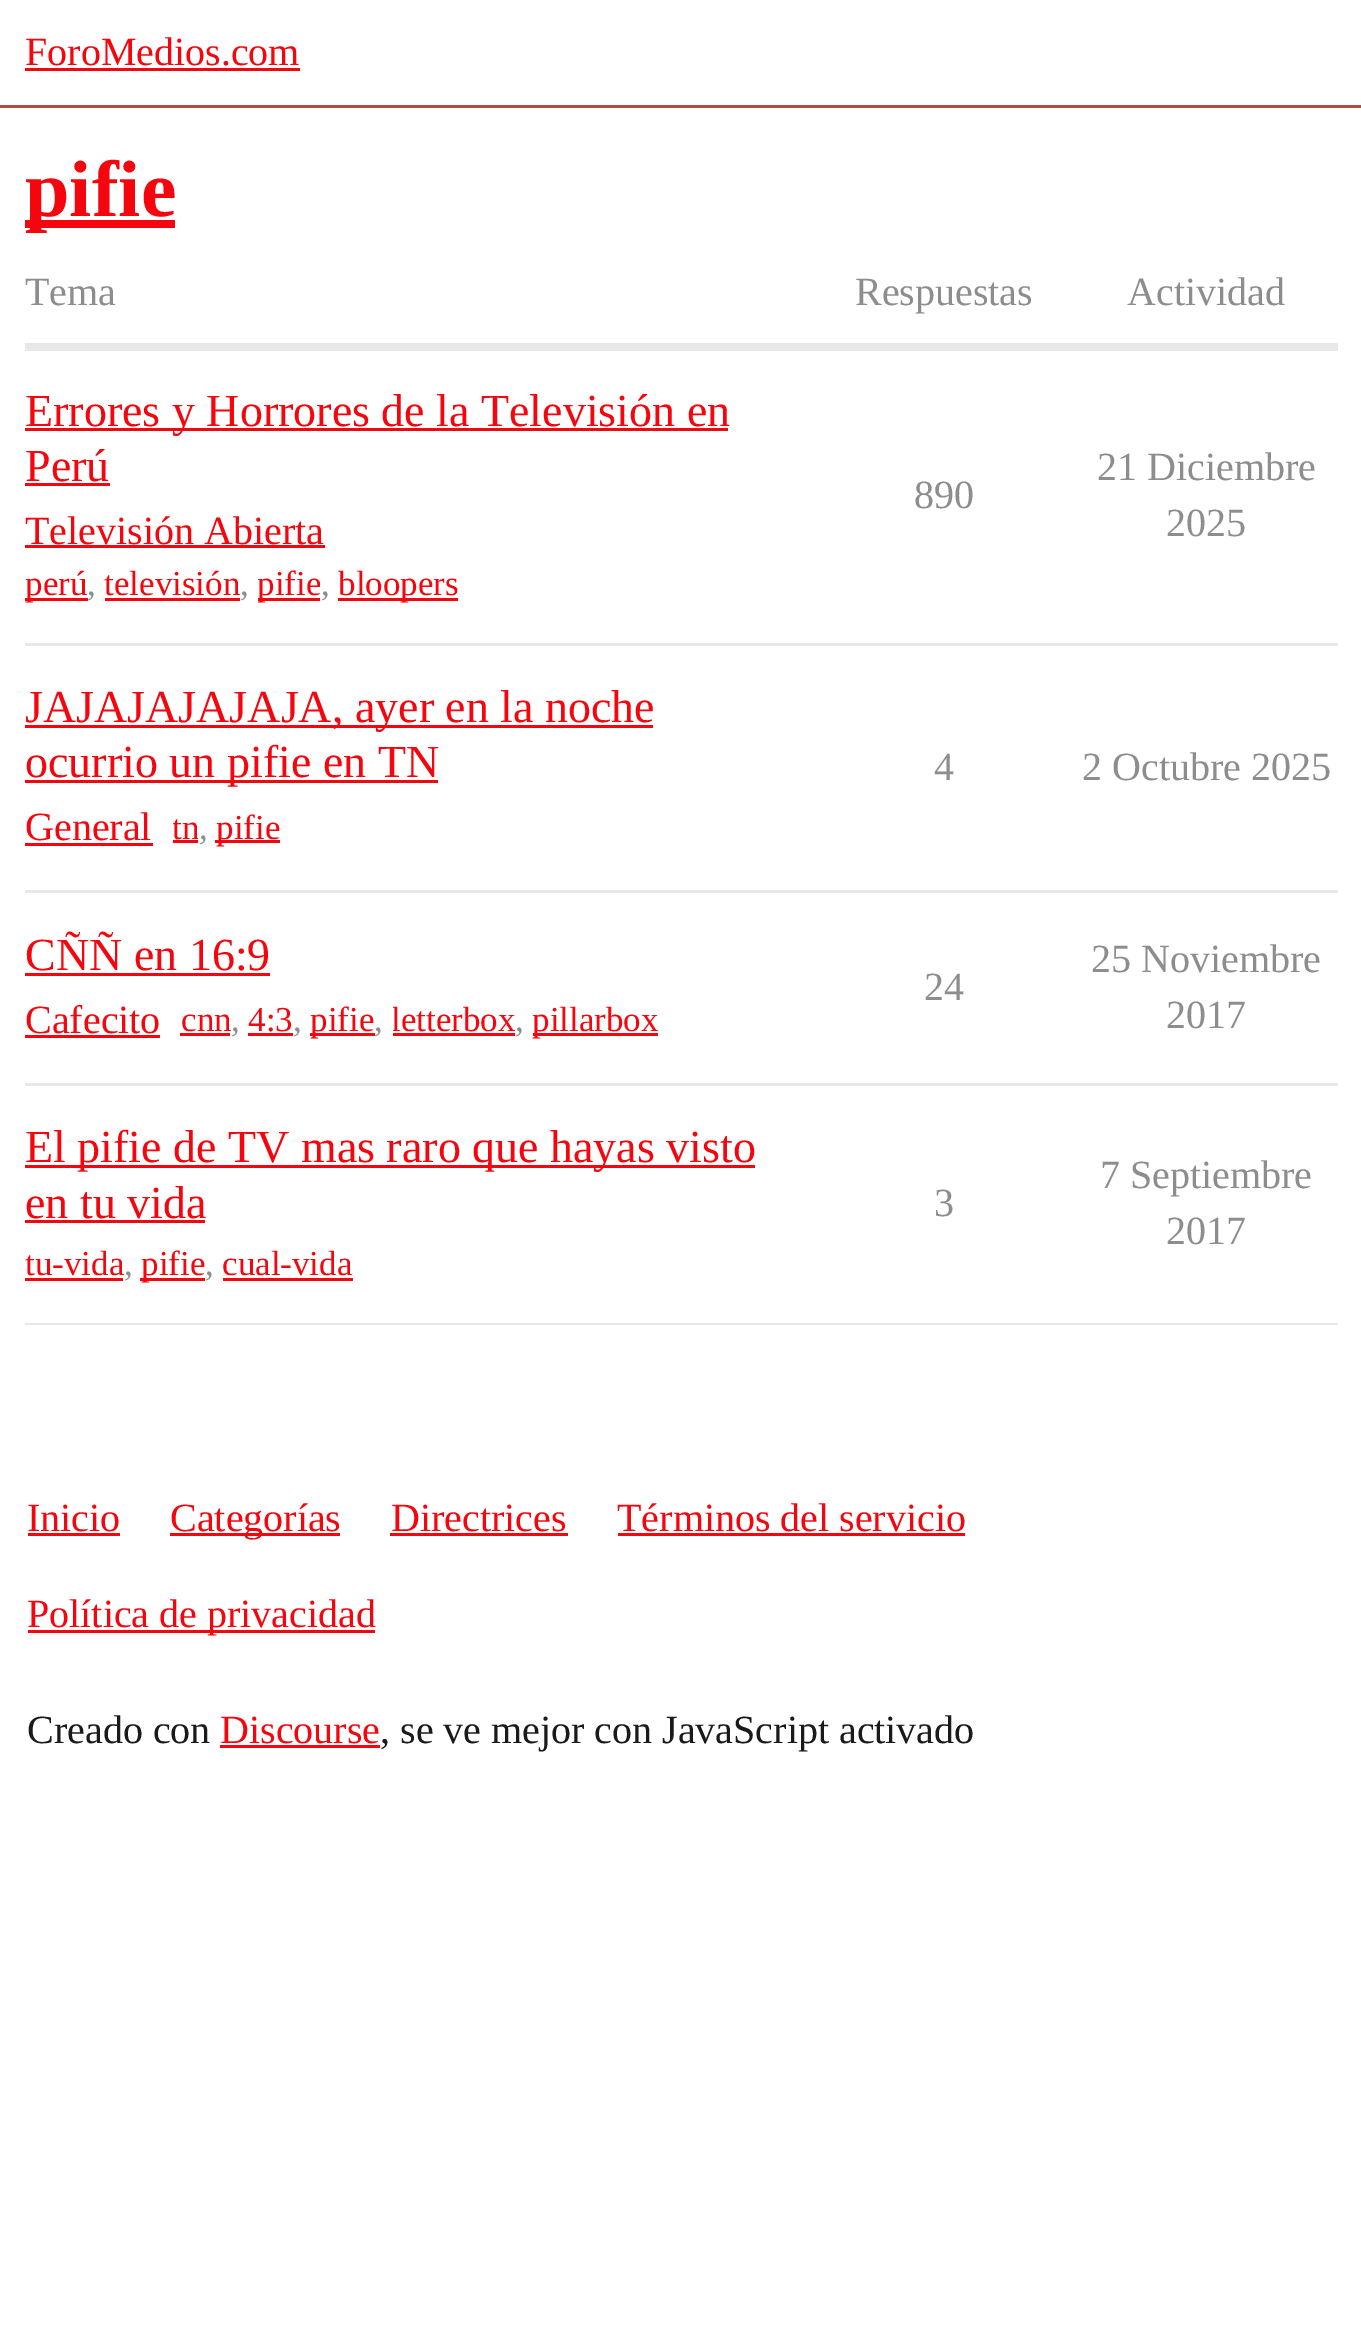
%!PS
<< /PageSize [1361 2343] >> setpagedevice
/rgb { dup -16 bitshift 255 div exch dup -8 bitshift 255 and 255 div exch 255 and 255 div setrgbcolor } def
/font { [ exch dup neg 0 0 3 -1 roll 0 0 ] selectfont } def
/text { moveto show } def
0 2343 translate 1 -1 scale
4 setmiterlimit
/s1 { /LiberationSerif-Regular 40 font 16#F5050D rgb } def
/s2 { /LiberationSerif-Bold 80 font 16#F5050D rgb } def
/s3 { /LiberationSerif-Regular 40 font 16#8D8D8D rgb } def
/s4 { /LiberationSerif-Regular 46 font 16#F5050D rgb } def
/s5 { /LiberationSerif-Regular 35 font 16#F5050D rgb } def
/s6 { /LiberationSerif-Regular 35 font 16#8D8D8D rgb } def
/s7 { /LiberationSerif-Regular 40 font 16#1A1A1A rgb } def
16#FFFFFF rgb
0 0 1361 2343 rectfill
16#AB4E43 rgb
0 105 1361 3 rectfill
s1
(ForoMedios.com) 25 65 text
25 68 275 3 rectfill
25 220 150 8 rectfill
s2
(pifie) 25 216 text
s3
(Tema) 25 305 text
(Respuestas) 855 305 text
(Actividad) 1127 305 text
16#E8E8E8 rgb
25 343 1313 8 rectfill
25 643 1313 3 rectfill
16#F5050D rgb
25 428 703 3 rectfill
s4
(Errores y Horrores de la Televisión en) 25 426 text
(Perú) 25 481 text
25 483 85 3 rectfill
s1
(Televisión Abierta) 25 544 text
25 545 300 3 rectfill
25 598 63 3 rectfill
s5
(perú) 25 595 text
s6
(,) 87 595 text
s5
(televisión) 104 595 text
105 598 135 3 rectfill
s6
(,) 240 595 text
16#F5050D rgb
258 598 62 3 rectfill
gsave
258 560 62 48 rectclip
(pifie) 257 595 text
grestore
s6
(,) 321 595 text
16#F5050D rgb
338 598 120 3 rectfill
(bloopers) 338 595 text
s3
(890) 914 508 text
(21 Diciembre) 1097 480 text
(2025) 1166 536 text
16#E8E8E8 rgb
25 890 1313 3 rectfill
16#F5050D rgb
25 725 628 3 rectfill
s4
(JAJAJAJAJAJA, ayer en la noche) 25 722 text
25 780 413 3 rectfill
(ocurrio un pifie en TN) 25 777 text
s1
(General) 25 840 text
25 843 128 3 rectfill
gsave
173 803 25 50 rectclip
s5
(tn) 172 839 text
grestore
173 840 25 3 rectfill
s6
(,) 199 839 text
16#F5050D rgb
215 840 65 3 rectfill
(pifie) 216 839 text
s3
(4) 934 780 text
(2 Octubre 2025) 1082 780 text
16#E8E8E8 rgb
25 1083 1313 3 rectfill
s4
(CÑÑ en 16:9) 25 970 text
25 973 245 3 rectfill
s1
(Cafecito) 25 1033 text
25 1035 135 3 rectfill
s5
(cnn) 181 1031 text
180 1033 50 3 rectfill
s6
(,) 231 1031 text
s5
(4:3) 248 1031 text
248 1033 45 3 rectfill
s6
(,) 293 1031 text
16#F5050D rgb
310 1033 65 3 rectfill
(pifie) 310 1031 text
s6
(,) 374 1031 text
gsave
393 995 122 50 rectclip
s5
(letterbox) 391 1031 text
grestore
16#F5050D rgb
393 1033 122 3 rectfill
s6
(,) 515 1031 text
16#F5050D rgb
533 1033 125 3 rectfill
(pillarbox) 532 1031 text
s3
(24) 924 1000 text
(25 Noviembre) 1091 972 text
(2017) 1166 1028 text
16#E8E8E8 rgb
25 1323 1313 2 rectfill
16#F5050D rgb
25 1165 730 3 rectfill
s4
(El pifie de TV mas raro que hayas visto) 25 1162 text
(en tu vida) 25 1218 text
25 1220 180 3 rectfill
s5
(tu-vida) 25 1275 text
25 1278 98 3 rectfill
s6
(,) 124 1275 text
16#F5050D rgb
140 1278 65 3 rectfill
(pifie) 141 1275 text
s6
(,) 205 1275 text
s5
(cual-vida) 222 1275 text
223 1278 130 3 rectfill
s3
(3) 934 1216 text
(7 Septiembre) 1100 1188 text
(2017) 1166 1244 text
s1
(Inicio) 27 1531 text
28 1533 92 3 rectfill
170 1533 170 3 rectfill
(Categorías) 170 1531 text
(Directrices) 391 1531 text
390 1533 178 3 rectfill
(Términos del servicio) 617 1531 text
618 1533 347 3 rectfill
28 1630 347 3 rectfill
(Política de privacidad) 27 1627 text
s7
(Creado con) 27 1743 text
s1
(Discourse) 220 1743 text
220 1745 160 3 rectfill
s7
(, se ve mejor con JavaScript activado) 380 1743 text
showpage
